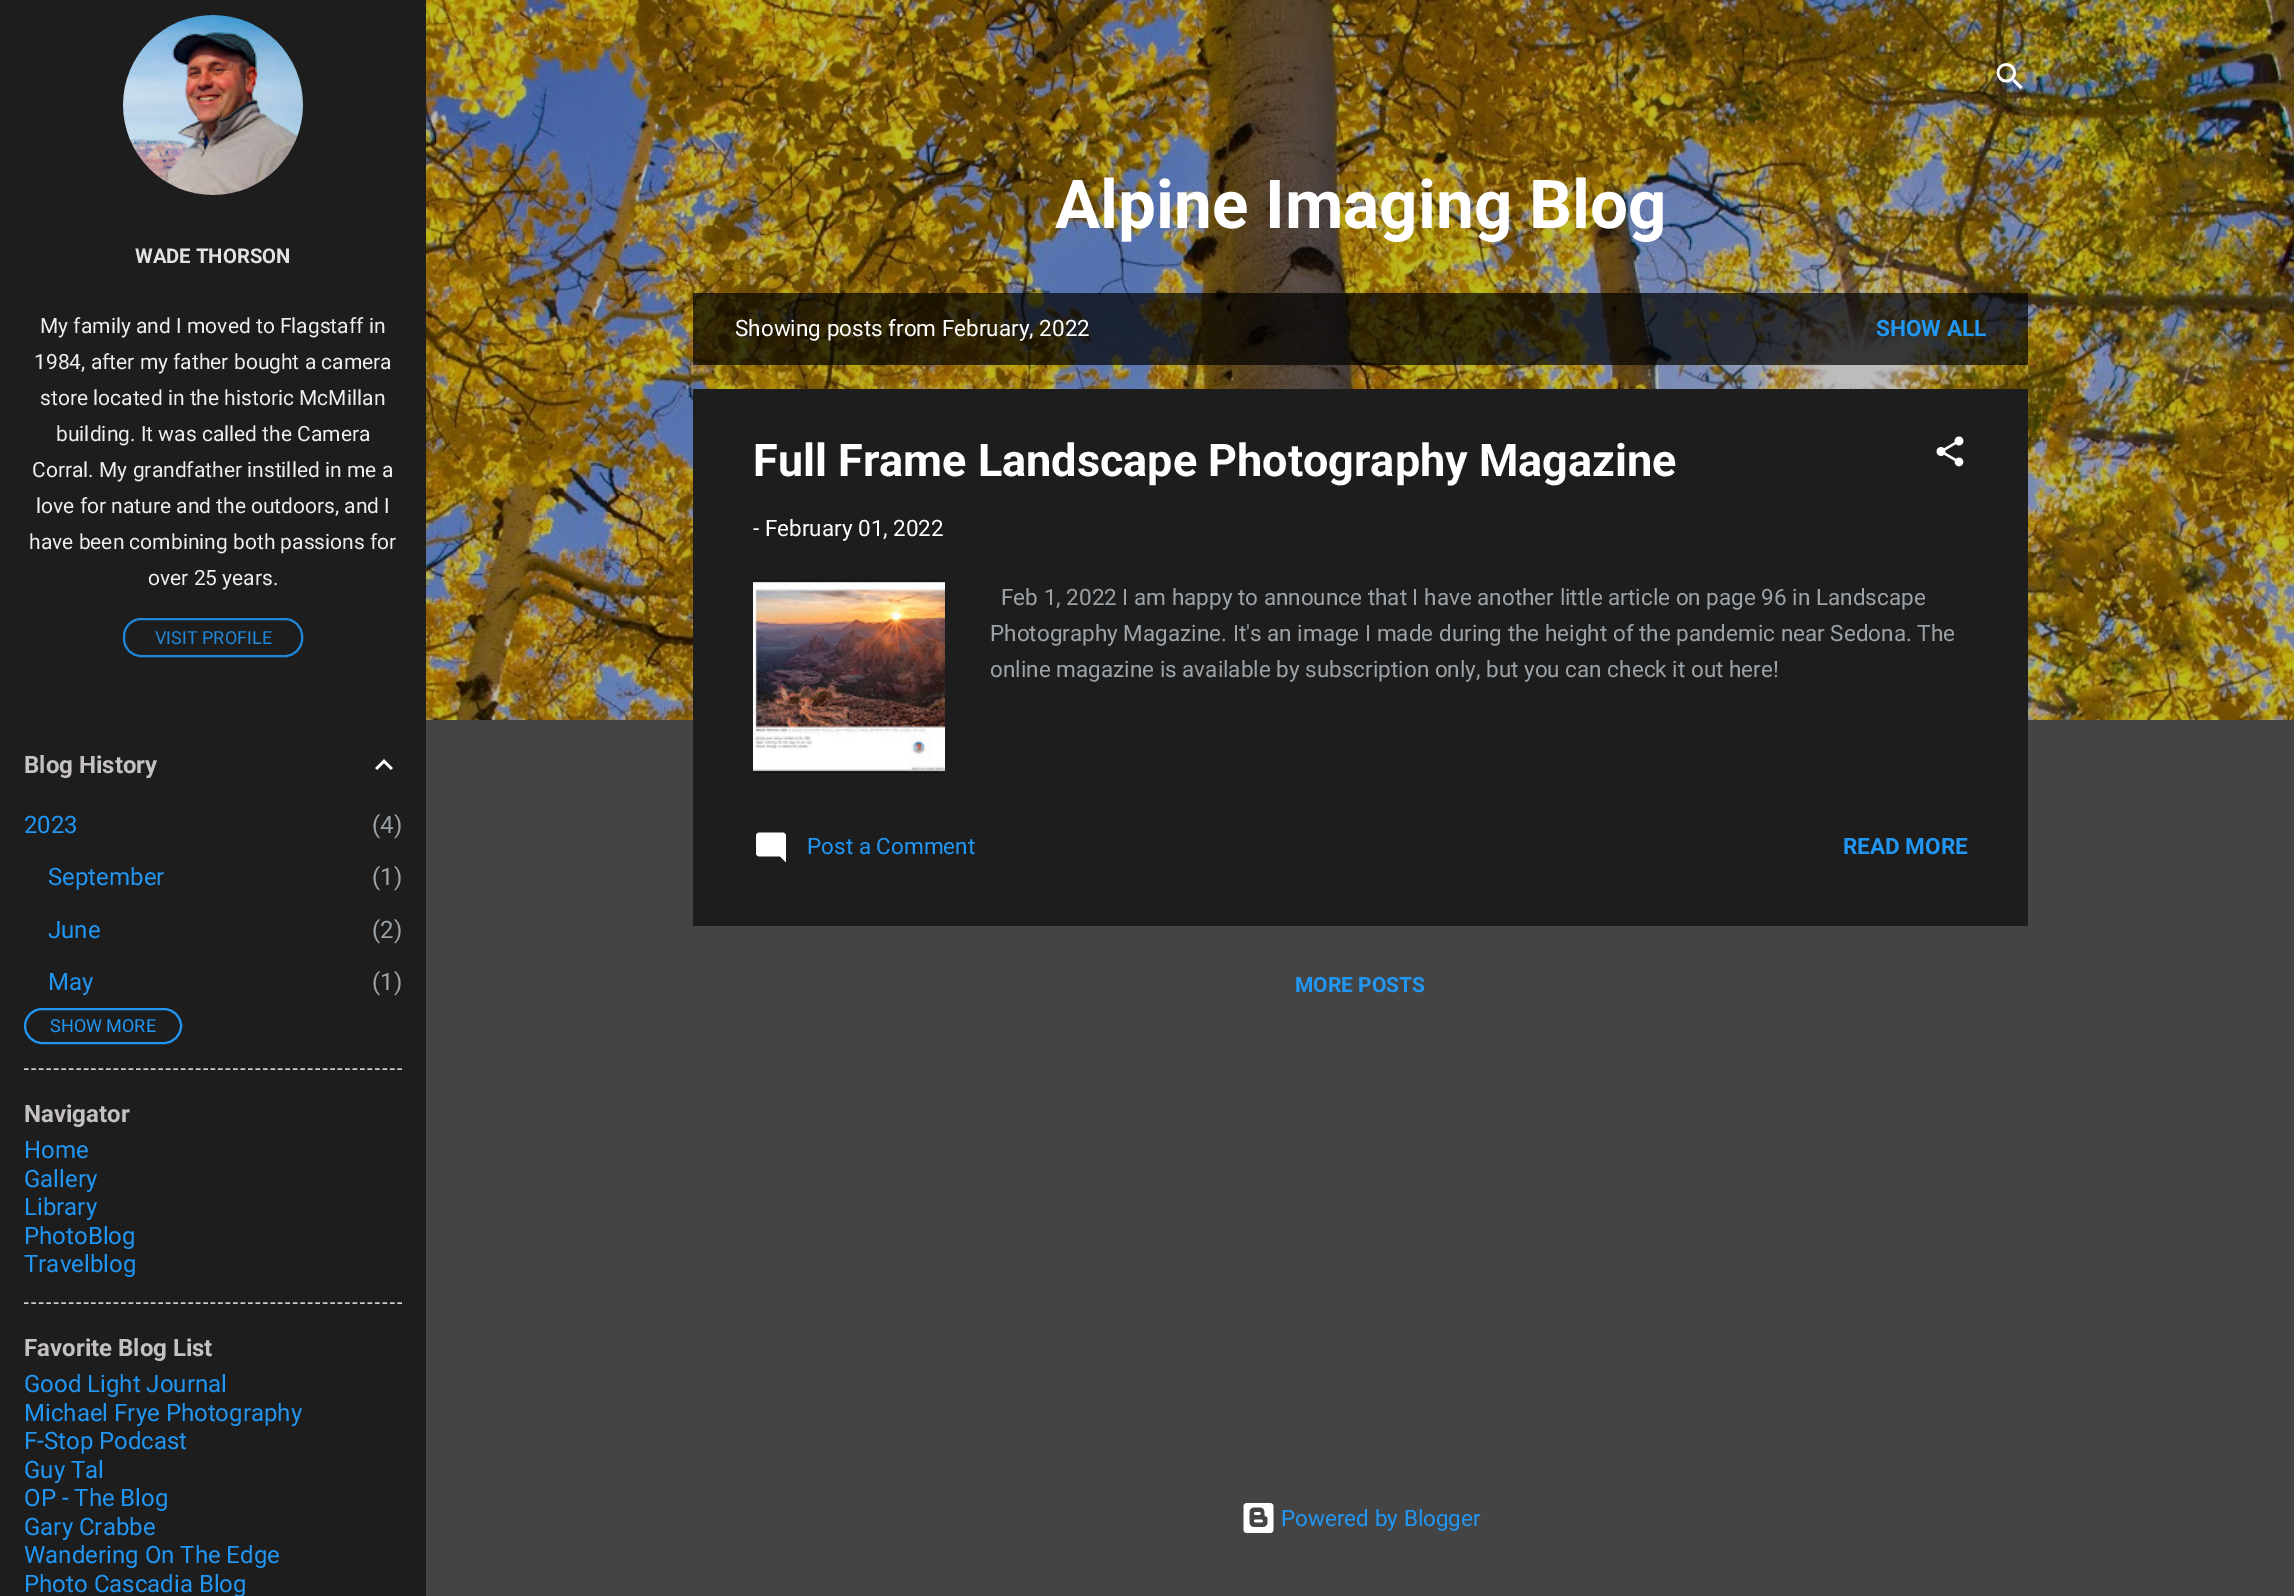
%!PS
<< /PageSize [2294 1596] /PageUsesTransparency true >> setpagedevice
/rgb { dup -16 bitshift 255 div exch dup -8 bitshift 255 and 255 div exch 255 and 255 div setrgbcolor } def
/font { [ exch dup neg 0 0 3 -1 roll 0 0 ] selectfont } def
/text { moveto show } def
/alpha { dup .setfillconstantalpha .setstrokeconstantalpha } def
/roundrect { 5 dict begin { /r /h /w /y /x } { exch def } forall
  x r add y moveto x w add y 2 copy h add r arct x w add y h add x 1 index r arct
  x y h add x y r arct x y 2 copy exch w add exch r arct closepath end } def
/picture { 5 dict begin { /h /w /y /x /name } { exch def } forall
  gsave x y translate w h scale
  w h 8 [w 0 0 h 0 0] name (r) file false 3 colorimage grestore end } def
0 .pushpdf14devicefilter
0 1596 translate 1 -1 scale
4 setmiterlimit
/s1 { /Roboto-Bold 20.25 font 16#E2E2E2 rgb } def
/s2 { /Roboto-Regular 21 font 16#EEEEEE rgb } def
/s3 { /Roboto-Regular 18 font 16#2086D7 rgb } def
/s4 { /Roboto-Bold 24 font 16#C5C1C1 rgb } def
/s5 { /Roboto-Regular 24 font 16#2196F3 rgb } def
/s6 { /Roboto-Regular 24 font 16#9BA2A8 rgb } def
/s7 { /Roboto-Regular 18 font 16#2196F3 rgb } def
/s8 { /Roboto-Bold 67.5 font 16#FFFFFF rgb } def
/s9 { /Roboto-Regular 22.5 font 16#FFFFFF rgb } def
/s10 { /Roboto-Bold 22.5 font 16#2196F3 rgb } def
/s11 { /Roboto-Bold 45 font 16#FFFFFF rgb } def
/s12 { /Roboto-Regular 22.5 font 16#9BA2A8 rgb } def
/s13 { /Roboto-Regular 22.5 font 16#2196F3 rgb } def
/s14 { /Roboto-Bold 21 font 16#2196F3 rgb } def
16#444444 rgb
0 0 2294 1596 rectfill
16#1D1D1D rgb
0 0 426 1596 rectfill
(pic1.raw) 123 15 180 180 picture
s1
(WADE THORSON) 135 263 text
s2
(My family and I moved to Flagstaff in) 40 333 text
(1984, after my father bought a camera) 34 369 text
(store located in the historic McMillan) 40 405 text
(building. It was called the Camera) 56 441 text
(Corral. My grandfather instilled in me a) 32 477 text
(love for nature and the outdoors, and I) 36 513 text
(have been combining both passions for) 29 549 text
(over 25 years.) 148 585 text
16#2086D7 rgb
2 setlinewidth
124 619 178 37 17 roundrect stroke
s3
(VISIT PROFILE) 155 644 text
s4
(Blog History) 24 773 text
(pic2.raw) 375 759 18 11 picture
s5
(2023) 24 833 text
s6
(\(4\)) 372 833 text
s5
(September) 48 885 text
s6
(\(1\)) 372 885 text
s5
(June) 48 938 text
s6
(\(2\)) 372 938 text
s5
(May) 48 990 text
s6
(\(1\)) 372 990 text
16#2196F3 rgb
25 1009 156 34 17 roundrect stroke
s7
(SHOW MORE) 50 1032 text
16#CCCCCC rgb
1.5 setlinewidth
[4.5 2.97] 0 setdash
24 1069 moveto 402 1069 lineto stroke
s4
(Navigator) 24 1122 text
s5
(Home) 24 1158 text
(Gallery) 24 1187 text
(Library) 24 1215 text
(PhotoBlog) 24 1244 text
(Travelblog) 24 1272 text
16#CCCCCC rgb
24 1303 moveto 402 1303 lineto stroke
s4
(Favorite Blog List) 24 1356 text
s5
(Good Light Journal) 24 1392 text
(Michael Frye Photography) 24 1421 text
(F-Stop Podcast) 24 1449 text
(Guy Tal) 24 1478 text
(OP - The Blog) 24 1506 text
(Gary Crabbe) 24 1535 text
(Wandering On The Edge) 24 1563 text
(Photo Cascadia Blog) 24 1592 text
(pic3.raw) 426 0 1868 720 picture
(pic4.raw) 1996 63 27 27 picture
s8
(Alpine Imaging Blog) 1055 228 text
0.7 alpha
16#000000 rgb
693 293 1335 72 rectfill
1 alpha
s9
(Showing posts from February, 2022) 735 336 text
s10
(SHOW ALL) 1876 336 text
16#1D1D1D rgb
693 389 1335 537 rectfill
s11
(Full Frame Landscape Photography Magazine) 753 476 text
(pic5.raw) 1936 436 28 31 picture
s9
(- February 01, 2022) 753 536 text
(pic6.raw) 753 580 192 193 picture
s12
(Feb 1, 2022 I am happy to announce that I have another little article on page 96 in Landscape) 1001 605 text
(Photography Magazine. It's an image I made during the height of the pandemic near Sedona. The) 990 641 text
(online magazine is available by subscription only, but you can check it out here!) 990 677 text
(pic7.raw) 756 832 30 31 picture
s13
(Post a Comment) 807 854 text
s10
(READ MORE) 1843 854 text
s14
(MORE POSTS) 1295 992 text
(pic8.raw) 1243 1503 31 30 picture
s13
(Powered by Blogger) 1281 1526 text
.poppdf14devicefilter showpage
